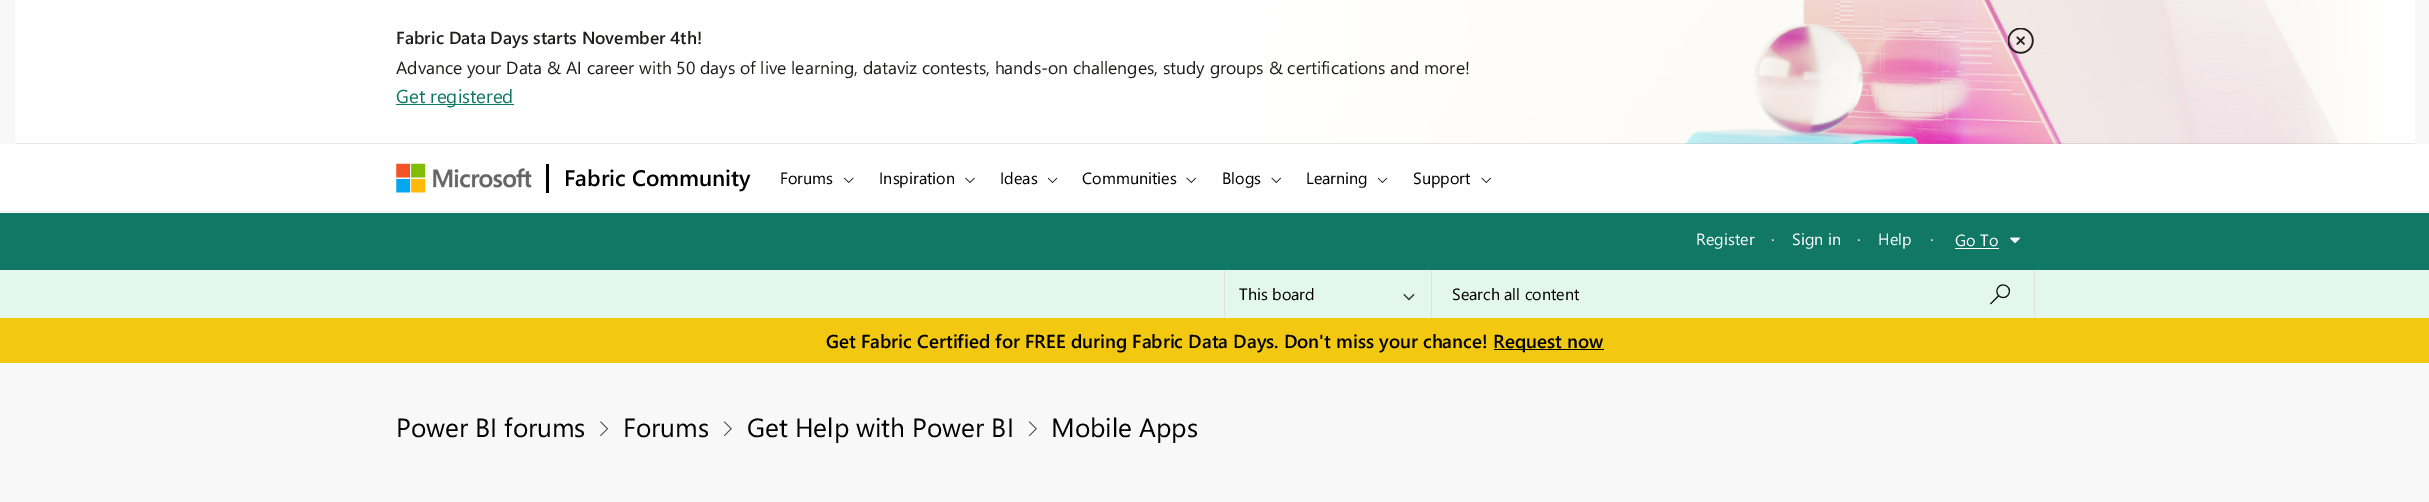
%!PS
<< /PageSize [2429 502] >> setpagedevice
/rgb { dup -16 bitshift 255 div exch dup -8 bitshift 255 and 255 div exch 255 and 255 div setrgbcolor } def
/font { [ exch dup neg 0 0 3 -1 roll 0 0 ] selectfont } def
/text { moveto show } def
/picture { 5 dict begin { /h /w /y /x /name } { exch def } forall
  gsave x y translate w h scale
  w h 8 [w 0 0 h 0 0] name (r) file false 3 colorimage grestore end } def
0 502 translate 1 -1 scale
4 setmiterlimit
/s1 { /SegoeUI-SemiBold 17.5 font 16#201F1E rgb } def
/s2 { /SegoeUI-Regular 17.5 font 16#201F1E rgb } def
/s3 { /SegoeUI-Regular 18.75 font 16#117865 rgb } def
/s4 { /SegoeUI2-SemiBold 22.5 font 16#000000 rgb } def
/s5 { /SegoeUI-Regular 16.25 font 16#000000 rgb } def
/s6 { /SegoeUI-Regular 16.25 font 16#FFFFFF rgb } def
/s7 { /SegoeUI-SemiBold 18.75 font 16#000000 rgb } def
/s8 { /SegoeUI-Regular 26.25 font 16#000000 rgb } def
16#F8F8F8 rgb
0 0 2429 502 rectfill
(pic1.raw) 15 0 2400 144 picture
s1
(Fabric Data Days starts November 4th!) 396 44 text
s2
(Advance your Data & AI career with 50 days of live learning, dataviz contests, hands-on challenges, study groups & certifications and more!) 396 74 text
16#117865 rgb
396 104 118 1 rectfill
s3
(Get registered) 396 103 text
(pic2.raw) 2008 28 26 26 picture
16#FFFFFF rgb
0 144 2429 69 rectfill
16#EFEFEF rgb
0 211 2429 1 rectfill
(pic3.raw) 396 163 136 30 picture
16#000000 rgb
546 164 3 29 rectfill
s4
(Fabric Community) 564 186 text
s5
(Forums) 780 184 text
(pic4.raw) 844 177 10 6 picture
(Inspiration) 879 184 text
(pic5.raw) 965 177 10 6 picture
(Ideas) 1000 184 text
(pic6.raw) 1048 177 10 6 picture
(Communities) 1082 184 text
(pic7.raw) 1186 177 10 6 picture
(Blogs) 1222 184 text
(pic7.raw) 1271 177 10 6 picture
(Learning) 1306 184 text
(pic6.raw) 1378 177 10 6 picture
(Support) 1413 184 text
(pic7.raw) 1481 177 10 6 picture
16#117865 rgb
0 213 2429 57 rectfill
s6
(Register) 1696 245 text
(·) 1771 245 text
(Sign in) 1792 245 text
(·) 1857 245 text
(Help) 1878 245 text
(·) 1930 245 text
(Go To) 1955 246 text
1955 248 44 1 rectfill
(pic8.raw) 2010 237 10 6 picture
16#E3F7EF rgb
0 270 2429 48 rectfill
16#E1E1E1 rgb
1224 270 1 48 rectfill
s5
(This board) 1239 300 text
(pic9.raw) 1403 293 12 8 picture
16#E1E1E1 rgb
2034 270 1 48 rectfill
1431 270 1 48 rectfill
gsave
1453 283 506 21 rectclip
s5
(Search all content) 1452 300 text
grestore
(pic10.raw) 1990 284 20 21 picture
16#F2C811 rgb
0 318 2429 45 rectfill
s7
(Get Fabric Certified for FREE during Fabric Data Days. Don't miss your chance!) 826 348 text
1494 349 110 1 rectfill
(Request now) 1493 348 text
s8
(Power BI forums) 396 437 text
(pic11.raw) 600 421 9 16 picture
(Forums) 623 437 text
(pic12.raw) 723 421 9 16 picture
(Get Help with Power BI) 747 437 text
(pic12.raw) 1028 421 9 16 picture
(Mobile Apps) 1051 437 text
showpage
